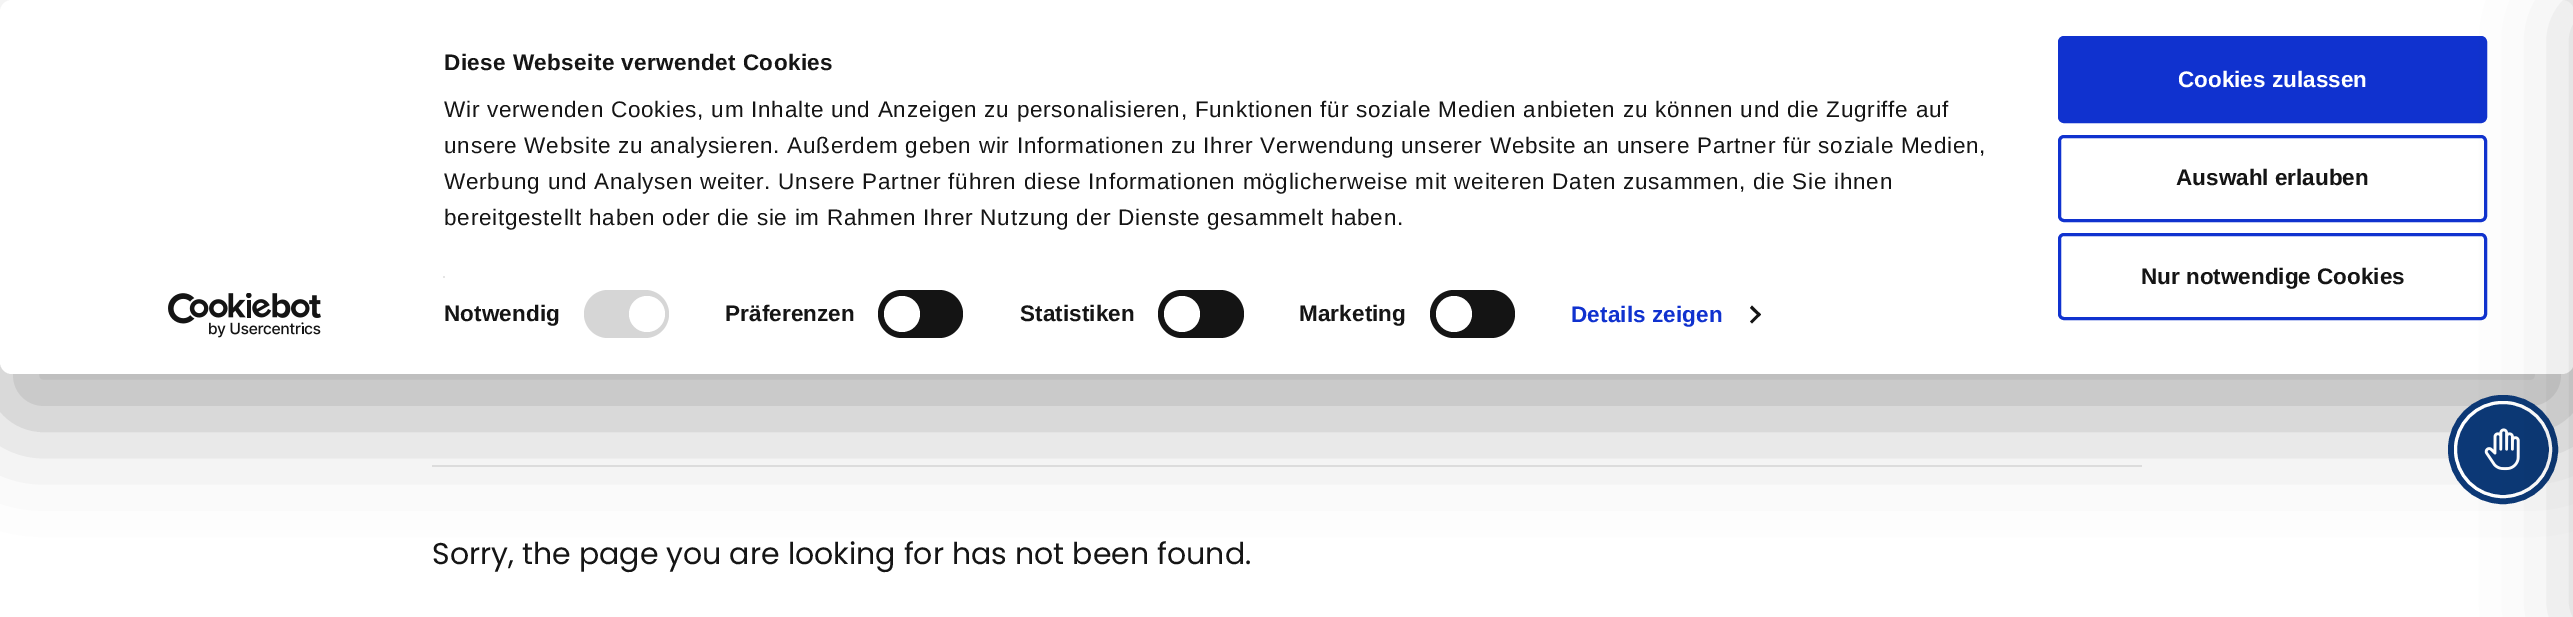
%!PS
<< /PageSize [2573 617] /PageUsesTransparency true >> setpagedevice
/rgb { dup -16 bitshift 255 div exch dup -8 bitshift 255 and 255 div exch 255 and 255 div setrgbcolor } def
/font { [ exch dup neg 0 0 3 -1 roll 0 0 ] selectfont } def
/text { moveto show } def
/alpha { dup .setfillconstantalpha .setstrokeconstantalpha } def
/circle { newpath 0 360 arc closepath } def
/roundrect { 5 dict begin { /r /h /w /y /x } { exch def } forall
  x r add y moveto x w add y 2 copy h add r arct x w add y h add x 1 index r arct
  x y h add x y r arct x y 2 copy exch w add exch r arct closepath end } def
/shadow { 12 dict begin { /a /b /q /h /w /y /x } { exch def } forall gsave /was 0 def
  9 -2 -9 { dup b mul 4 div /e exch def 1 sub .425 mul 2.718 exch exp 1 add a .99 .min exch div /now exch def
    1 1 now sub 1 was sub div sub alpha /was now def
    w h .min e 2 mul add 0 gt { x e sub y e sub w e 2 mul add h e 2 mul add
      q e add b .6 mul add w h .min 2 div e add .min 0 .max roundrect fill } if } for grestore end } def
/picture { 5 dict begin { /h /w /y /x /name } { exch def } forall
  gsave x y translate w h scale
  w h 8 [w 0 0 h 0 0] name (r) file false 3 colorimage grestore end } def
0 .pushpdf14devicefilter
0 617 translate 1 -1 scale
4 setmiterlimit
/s1 { /LiberationSans-Bold 22.5 font 16#FFFFFF rgb } def
/s2 { /LiberationSans-Bold 22.5 font 16#151515 rgb } def
/s3 { /Poppins-Regular 30 font 16#151515 rgb } def
16#FFFFFF rgb
0 0 2573 617 rectfill
16#E6E6E6 rgb
432 465 1710 2 rectfill
16#000000 rgb
0 45 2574 374 12 52.5 0.3 shadow
16#FFFFFF rgb
0 0 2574 374 12 roundrect fill
/LiberationSans-Bold 22.5 font
16#151515 rgb
444 70 moveto 0.4 0 (Diese Webseite verwendet Cookies) ashow
/LiberationSans-Regular 22.5 font
444 117 moveto 0.75 0 (Wir verwenden Cookies, um Inhalte und Anzeigen zu personalisieren, Funktionen für soziale Medien anbieten zu können und die Zugriffe auf) ashow
444 153 moveto 0.75 0 (unsere Website zu analysieren. Außerdem geben wir Informationen zu Ihrer Verwendung unserer Website an unsere Partner für soziale Medien,) ashow
444 189 moveto 0.75 0 (Werbung und Analysen weiter. Unsere Partner führen diese Informationen möglicherweise mit weiteren Daten zusammen, die Sie ihnen) ashow
444 225 moveto 0.75 0 (bereitgestellt haben oder die sie im Rahmen Ihrer Nutzung der Dienste gesammelt haben.) ashow
16#E5E5E5 rgb
443 276 2 2 rectfill
/LiberationSans-Bold 22.5 font
16#151515 rgb
444 321 moveto 0.1 0 (Notwendig) ashow
16#D6D6D6 rgb
584 290 85 48 24 roundrect fill
16#FFFFFF rgb
647 314 18 circle fill
16#151515 rgb
725 321 moveto 0.1 0 (Präferenzen) ashow
16#141414 rgb
878 290 85 48 24 roundrect fill
16#FFFFFF rgb
902 314 18 circle fill
16#151515 rgb
1020 321 moveto 0.1 0 (Statistiken) ashow
16#141414 rgb
1158 290 86 48 24 roundrect fill
16#FFFFFF rgb
1182 314 18 circle fill
16#151515 rgb
1299 321 moveto 0.1 0 (Marketing) ashow
16#141414 rgb
1430 290 85 48 24 roundrect fill
16#FFFFFF rgb
1454 314 18 circle fill
16#1032CF rgb
1571 322 moveto 0.1 0 (Details zeigen) ashow
16#141414 rgb
1752 305.5 moveto 1761 314.5 lineto 1759 316.5 lineto 1750 308 lineto closepath fill
1759 312.5 moveto 1761 314.5 lineto 1752 323.5 lineto 1750 321.5 lineto closepath fill
16#1032CF rgb
2059.5 37.5 426 84 4.5 roundrect gsave fill grestore
3 setlinewidth
stroke
s1
(Cookies zulassen) 2178 87 text
16#1032CF rgb
2059.5 136.5 426 84 4.5 roundrect stroke
s2
(Auswahl erlauben) 2176 185 text
16#1032CF rgb
2059.5 234.5 426 84 4.5 roundrect stroke
s2
(Nur notwendige Cookies) 2141 284 text
(pic1.raw) 168 293 153 45 picture
16#0C3876 rgb
6 setlinewidth
2451 398 104 103 51.5 roundrect stroke
2455.5 402.5 95 94 47 roundrect gsave fill grestore
16#FFFFFF rgb
3 setlinewidth
stroke
(pic2.raw) 2484 428 36 43 picture
16#000000 rgb
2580 15 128 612 0 45 0.2 shadow
s3
(Sorry, the page you are looking for has not been found.) 432 564 text
.poppdf14devicefilter showpage
